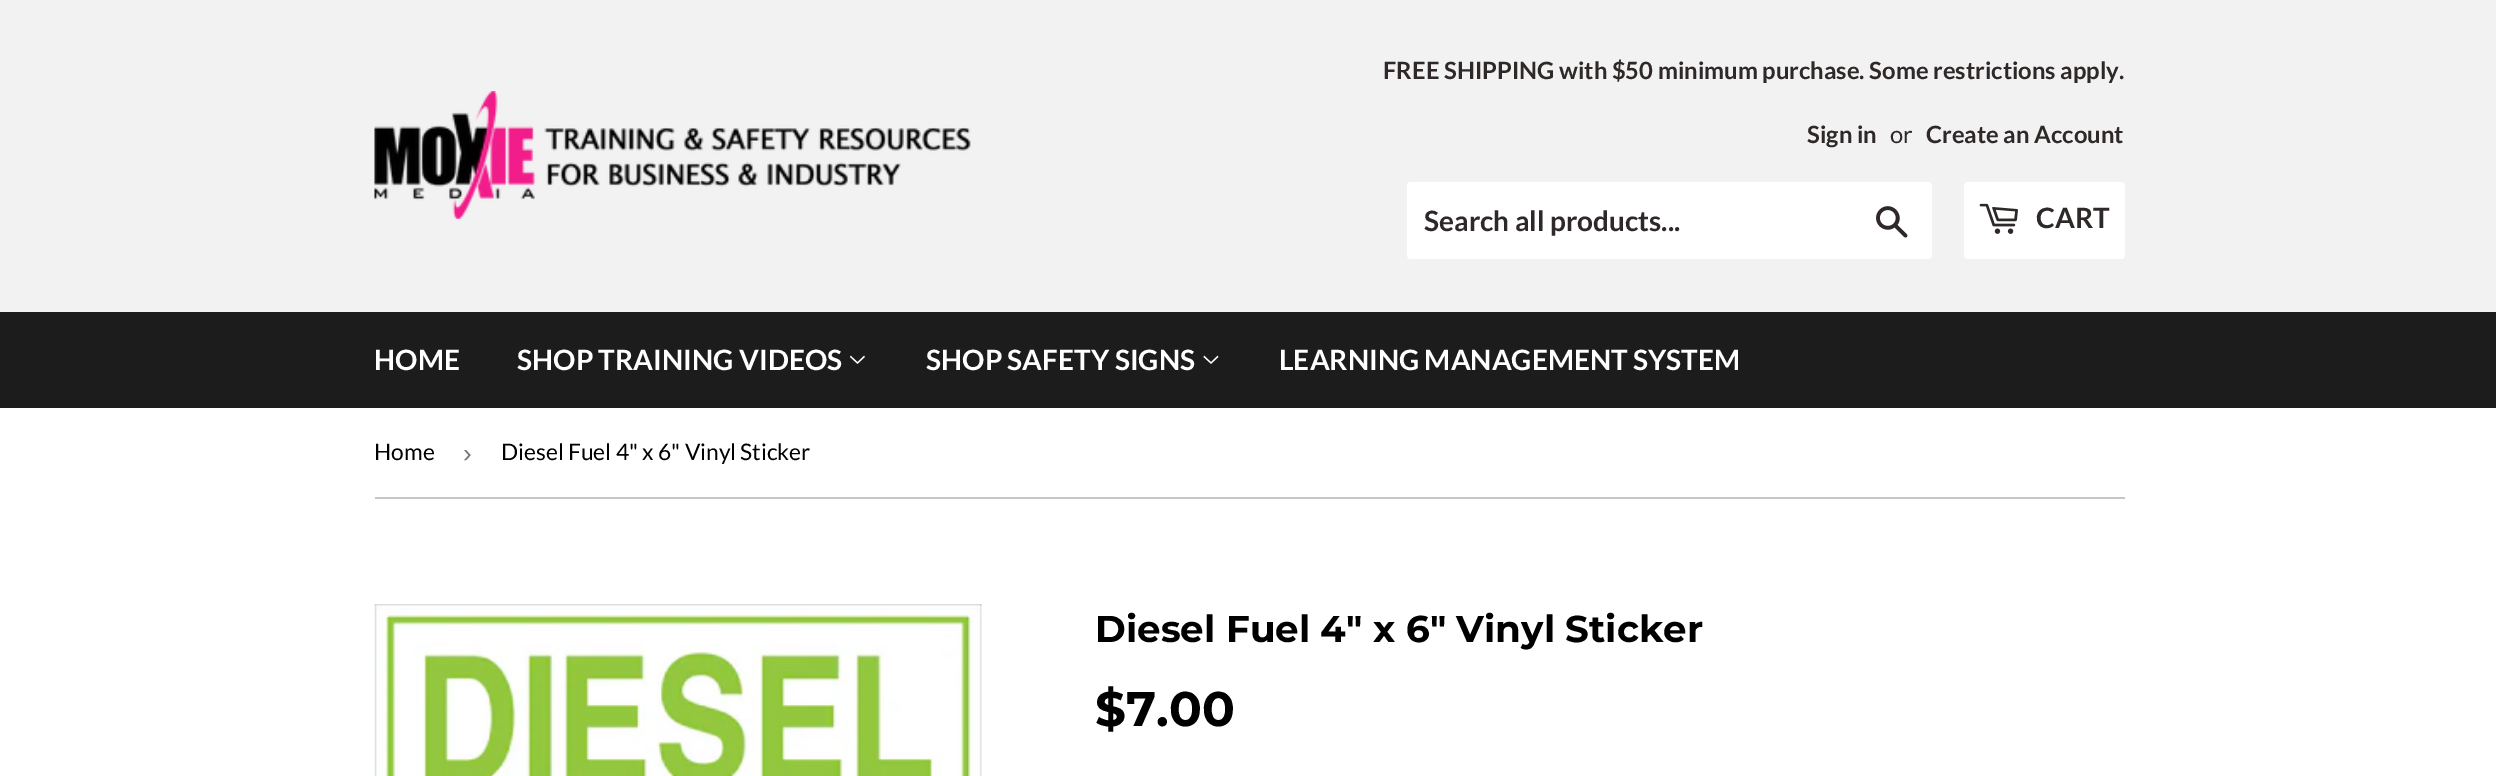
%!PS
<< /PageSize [2496 776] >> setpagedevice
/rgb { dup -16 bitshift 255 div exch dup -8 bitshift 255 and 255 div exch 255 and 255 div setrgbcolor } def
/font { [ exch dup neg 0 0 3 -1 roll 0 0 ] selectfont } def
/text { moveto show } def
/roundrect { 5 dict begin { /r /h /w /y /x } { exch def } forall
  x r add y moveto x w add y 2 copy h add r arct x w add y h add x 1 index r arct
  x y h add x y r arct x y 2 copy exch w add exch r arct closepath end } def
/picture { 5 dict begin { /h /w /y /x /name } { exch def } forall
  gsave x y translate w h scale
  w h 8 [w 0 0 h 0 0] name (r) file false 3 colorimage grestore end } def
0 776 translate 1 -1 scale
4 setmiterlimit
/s1 { /Lato-Bold 23.8 font 16#2F2828 rgb } def
/s2 { /Lato-Regular 23.8 font 16#2F2828 rgb } def
/s3 { /Lato-Bold 28 font 16#2F2828 rgb } def
/s4 { /Lato-Bold 28 font 16#FFFFFF rgb } def
/s5 { /Lato-Regular 22.75 font 16#000000 rgb } def
/s6 { /LiberationSans-Regular 26 font 16#767676 rgb } def
/s7 { /Montserrat-Thin 37.3 font 16#000000 rgb } def
/s8 { /Montserrat-Thin 48.5 font 16#000000 rgb } def
16#FFFFFF rgb
0 0 2496 776 rectfill
16#F2F2F2 rgb
0 0 2496 312 rectfill
(pic1.raw) 374 91 597 128 picture
s1
(FREE SHIPPING with $50 minimum purchase. Some restrictions apply.) 1383 79 text
(Sign in) 1807 143 text
s2
(or) 1890 143 text
s1
(Create an Account) 1926 143 text
16#FFFFFF rgb
1407 182 525 77 4 roundrect fill
s3
(Search all products...) 1424 231 text
(pic2.raw) 1876 206 32 32 picture
16#FFFFFF rgb
1964 182 161 77 4 roundrect fill
(pic3.raw) 1979 203 39 31 picture
s3
(CART) 2036 228 text
16#1C1C1C rgb
0 312 2496 96 rectfill
s4
(HOME) 374 370 text
(SHOP TRAINING VIDEOS) 517 370 text
(pic4.raw) 850 355 15 9 picture
(SHOP SAFETY SIGNS) 926 370 text
(pic5.raw) 1203 355 16 9 picture
(LEARNING MANAGEMENT SYSTEM) 1279 370 text
16#C7C7C7 rgb
375 497 1750 2 rectfill
s5
(Home) 374 460 text
s6
(›) 463 462 text
s5
(Diesel Fuel 4" x 6" Vinyl Sticker) 501 460 text
(pic6.raw) 374 604 608 172 picture
s7
(Diesel Fuel 4" x 6" Vinyl Sticker) 1095 642 text
s8
($7.00) 1095 726 text
showpage
